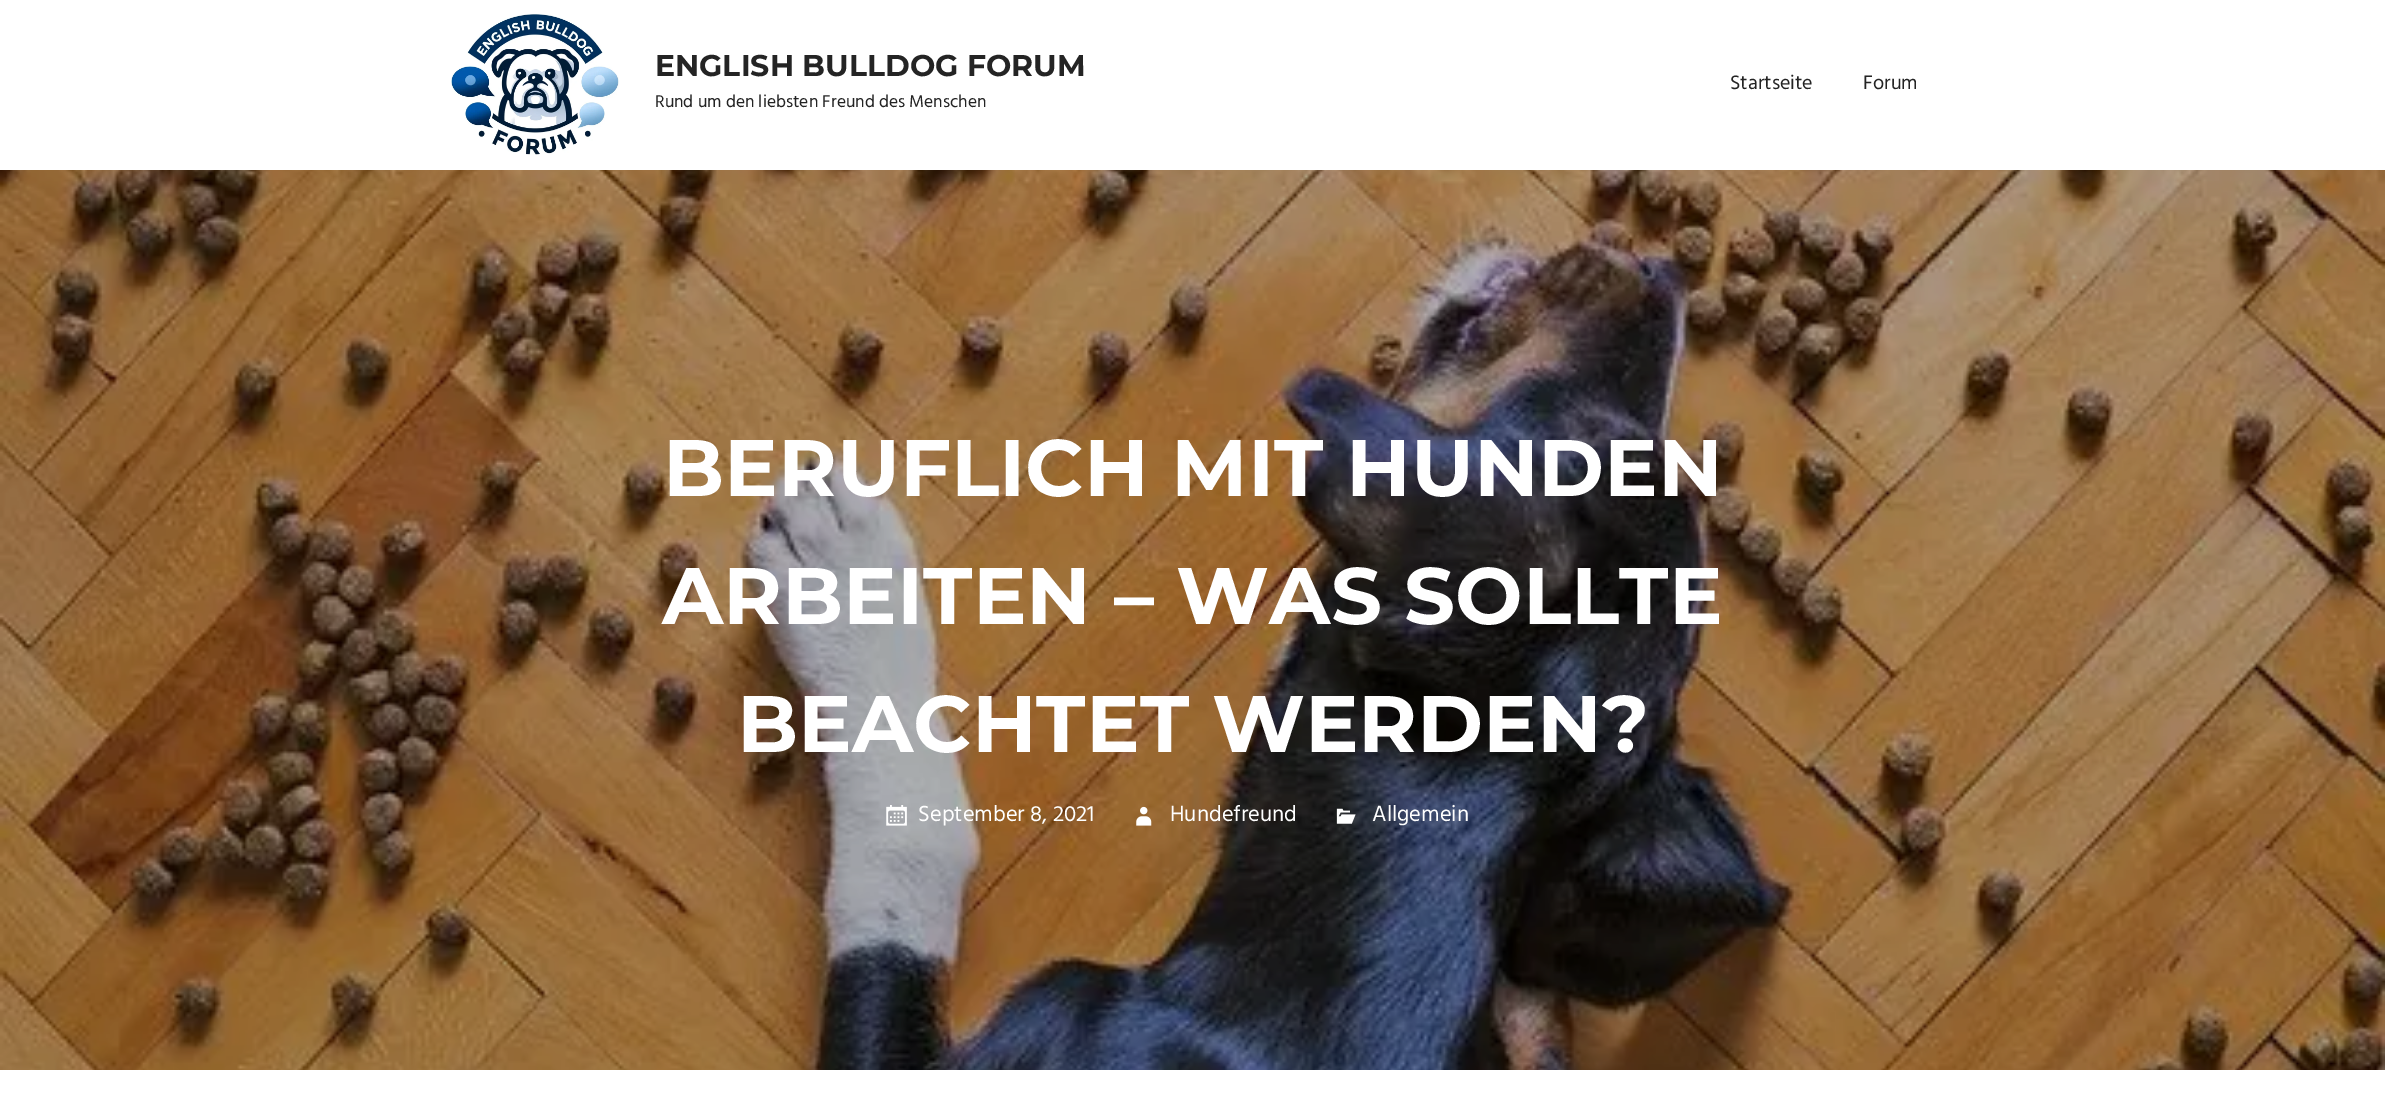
%!PS
<< /PageSize [2385 1104] >> setpagedevice
/rgb { dup -16 bitshift 255 div exch dup -8 bitshift 255 and 255 div exch 255 and 255 div setrgbcolor } def
/font { [ exch dup neg 0 0 3 -1 roll 0 0 ] selectfont } def
/text { moveto show } def
/picture { 5 dict begin { /h /w /y /x /name } { exch def } forall
  gsave x y translate w h scale
  w h 8 [w 0 0 h 0 0] name (r) file false 3 colorimage grestore end } def
0 1104 translate 1 -1 scale
4 setmiterlimit
/s1 { /Montserrat-Bold 30 font 16#242424 rgb } def
/s2 { /Hind-Regular 17.5 font 16#242424 rgb } def
/s3 { /Hind-Regular 20 font 16#242424 rgb } def
/s4 { /Montserrat-Bold 80 font 16#FFFFFF rgb } def
/s5 { /Hind-Regular 22.5 font 16#FFFFFF rgb } def
16#FFFFFF rgb
0 0 2385 1104 rectfill
(pic1.raw) 451 14 168 141 picture
s1
(ENGLISH BULLDOG FORUM) 655 76 text
s2
(Rund um den liebsten Freund des Menschen) 655 107 text
s3
(Startseite) 1730 89 text
(Forum) 1863 89 text
(pic2.raw) 0 170 2385 900 picture
s4
(BERUFLICH MIT HUNDEN) 663 496 text
(ARBEITEN – WAS SOLLTE) 662 624 text
(BEACHTET WERDEN?) 737 752 text
(pic3.raw) 886 805 21 21 picture
s5
(September 8, 2021) 918 821 text
(pic4.raw) 1136 806 16 20 picture
(Hundefreund) 1170 821 text
(pic5.raw) 1336 808 20 16 picture
(Allgemein) 1372 821 text
showpage
